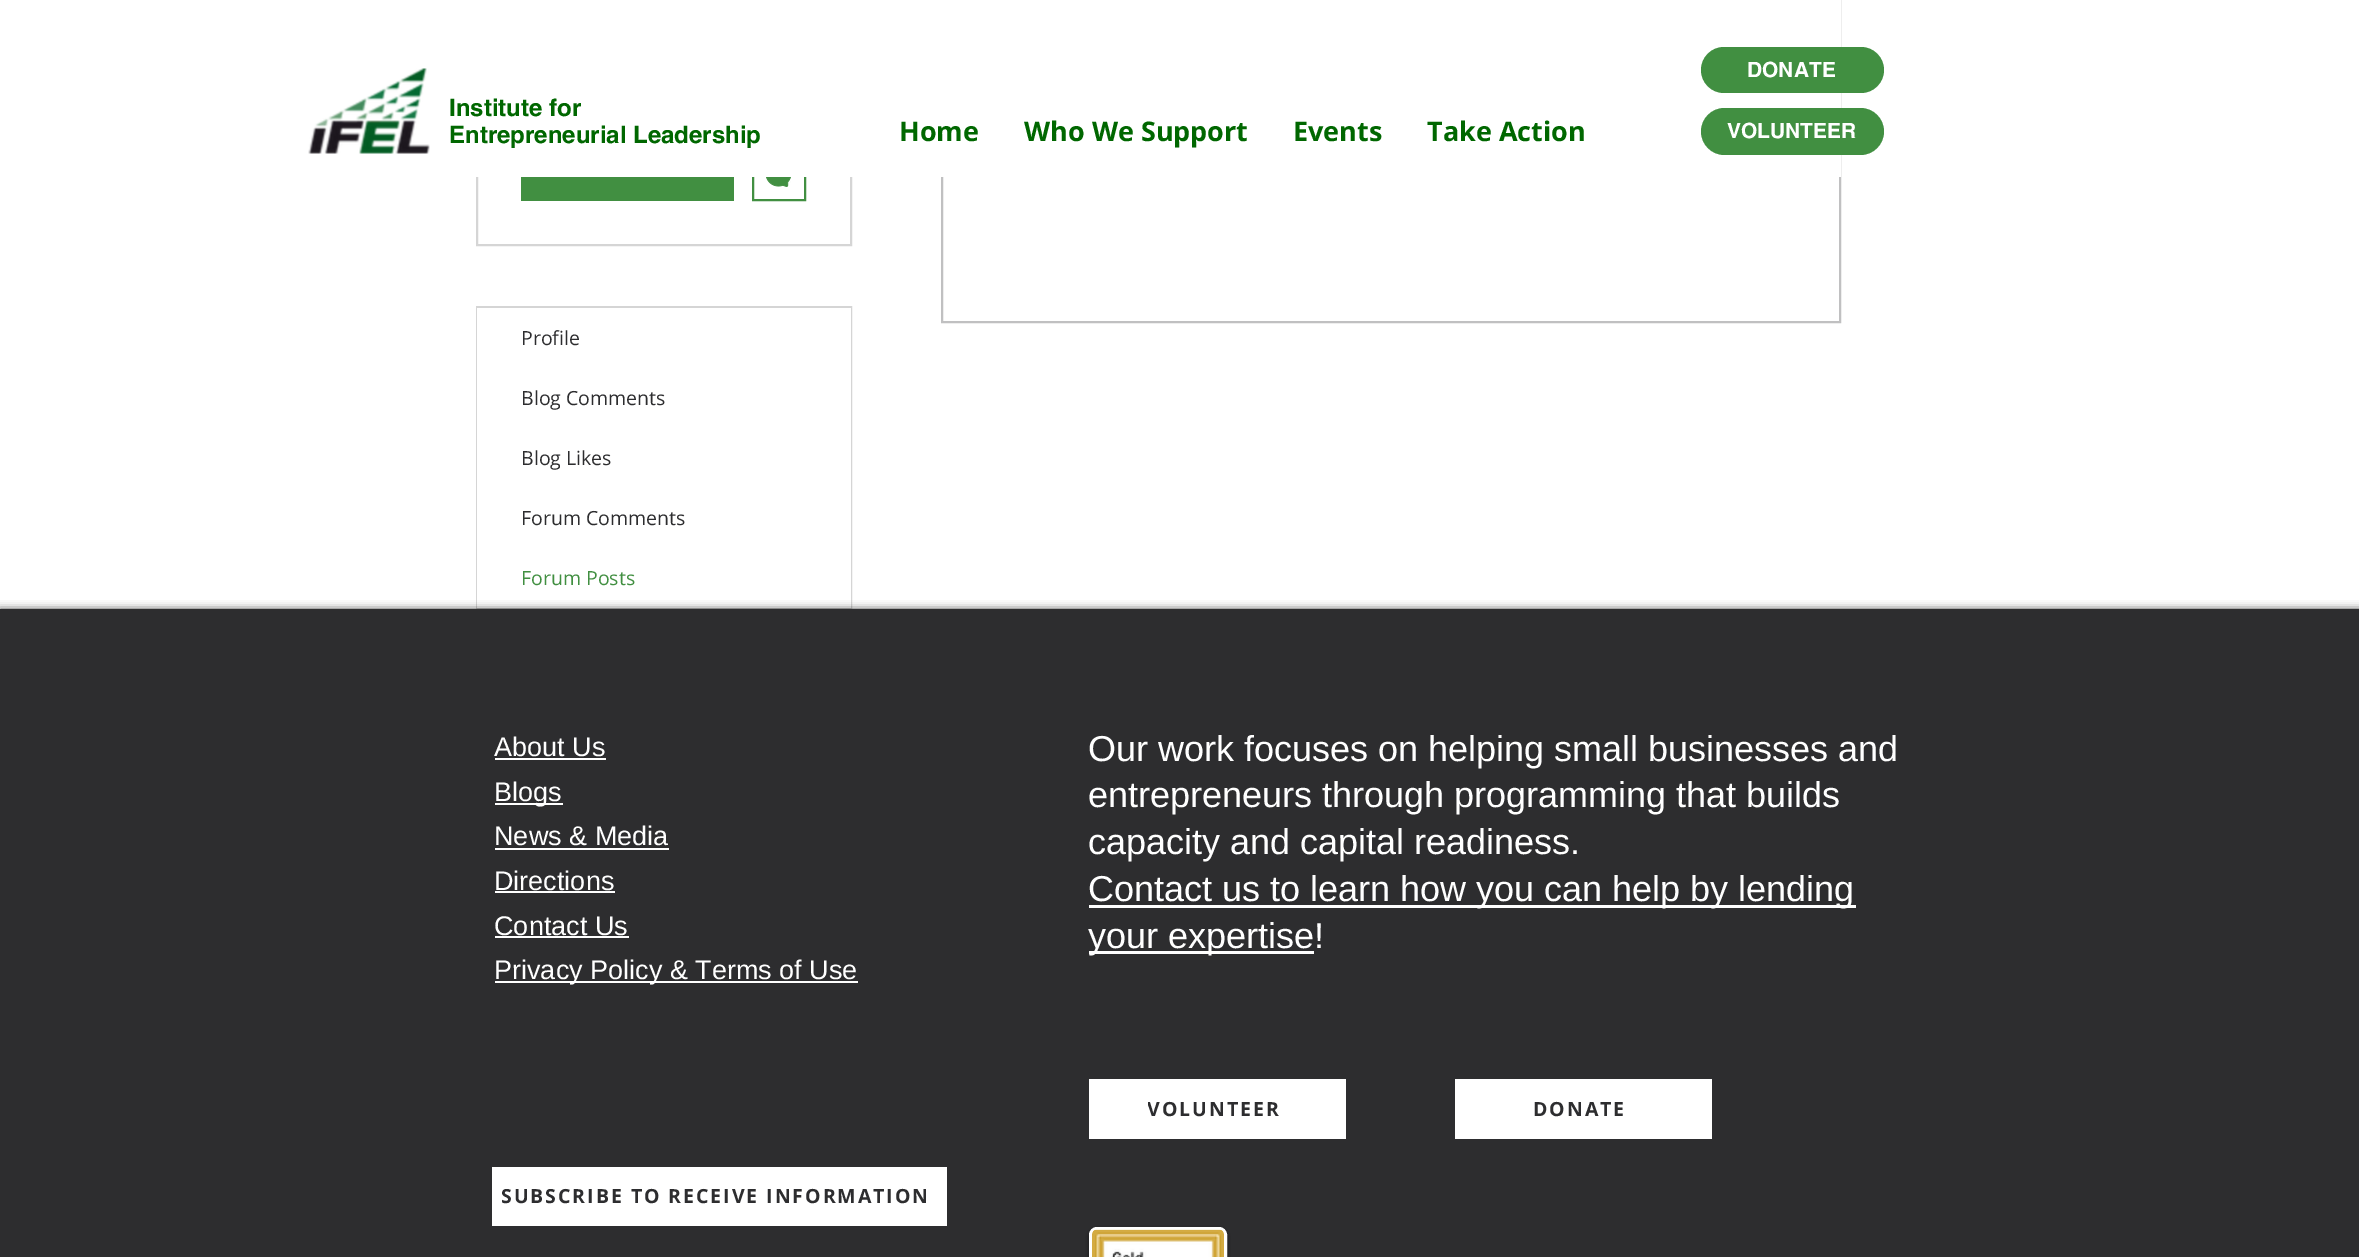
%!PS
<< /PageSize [2359 1257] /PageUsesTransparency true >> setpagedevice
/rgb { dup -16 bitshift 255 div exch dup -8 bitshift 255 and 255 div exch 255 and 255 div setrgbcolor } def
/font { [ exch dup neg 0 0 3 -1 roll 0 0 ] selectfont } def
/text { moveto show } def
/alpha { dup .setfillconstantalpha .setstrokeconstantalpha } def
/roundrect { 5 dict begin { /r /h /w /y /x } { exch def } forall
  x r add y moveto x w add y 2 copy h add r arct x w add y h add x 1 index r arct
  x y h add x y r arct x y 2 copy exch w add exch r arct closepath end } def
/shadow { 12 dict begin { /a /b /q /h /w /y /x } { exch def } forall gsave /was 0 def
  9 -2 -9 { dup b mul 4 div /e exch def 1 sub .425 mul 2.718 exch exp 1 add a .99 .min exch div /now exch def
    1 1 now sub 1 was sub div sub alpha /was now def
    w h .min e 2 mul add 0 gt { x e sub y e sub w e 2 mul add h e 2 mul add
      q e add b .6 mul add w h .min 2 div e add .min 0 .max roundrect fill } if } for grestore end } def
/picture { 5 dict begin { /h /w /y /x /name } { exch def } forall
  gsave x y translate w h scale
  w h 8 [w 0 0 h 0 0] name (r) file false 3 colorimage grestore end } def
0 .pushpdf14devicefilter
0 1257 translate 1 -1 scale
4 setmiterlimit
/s1 { /helvetica-Bold 21 font 16#FFFFFF rgb } def
/s2 { /helvetica-Bold 24 font 16#006700 rgb } def
/s3 { /OpenSans-Bold 27 font 16#006700 rgb } def
/s4 { /OpenSans-Regular 19.5 font 16#2D2D2F rgb } def
/s5 { /OpenSans-Regular 19.5 font 16#418F41 rgb } def
/s6 { /LiberationSans-Regular 27 font 16#FFFFFF rgb } def
/s7 { /LiberationSans-Regular 36 font 16#FFFFFF rgb } def
16#FFFFFF rgb
0 0 2359 1257 rectfill
16#C0C0C1 rgb
2 setlinewidth
942 -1 898 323 rectstroke
16#D5D5D5 rgb
477 -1 374 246 rectstroke
16#418F41 rgb
753 148 52 52 rectstroke
16#FFFFFF rgb
476 0 1365 177 rectfill
16#418F41 rgb
1701 47 183 46 23 roundrect fill
s1
(DONATE) 1747 77 text
(pic1.raw) 308 68 122 86 picture
s2
(Institute for) 449 116 text
(Entrepreneurial Leadership) 449 143 text
s3
(Home) 899 141 text
(Who We Support) 1024 141 text
(Events) 1293 141 text
(Take Action) 1427 141 text
16#418F41 rgb
1701 108 183 47 23.5 roundrect fill
s1
(VOLUNTEER) 1727 138 text
16#418F41 rgb
521 177 213 24 rectfill
(pic2.raw) 766 177 25 10 picture
16#D5D5D5 rgb
477 307 374 301 rectstroke
16#FFFFFF rgb
477 308 374 300 rectfill
s4
(Profile) 521 345 text
(Blog Comments) 521 405 text
(Blog Likes) 521 465 text
(Forum Comments) 521 525 text
s5
(Forum Posts) 521 585 text
16#000000 rgb
0 609 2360 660 0 4 0.7 shadow
16#2D2D2F rgb
0 609 2359 648 rectfill
s6
(About Us) 494 756 text
495 758 111 2 rectfill
495 803 68 2 rectfill
(Blogs) 494 801 text
(News & Media) 494 845 text
495 848 174 2 rectfill
(Directions) 494 890 text
495 891 120 2 rectfill
(Contact Us) 494 935 text
495 936 134 2 rectfill
495 981 363 2 rectfill
(Privacy Policy & Terms of Use) 494 979 text
s7
(Our work focuses on helping small businesses and) 1088 761 text
(entrepreneurs through programming that builds) 1088 807 text
(capacity and capital readiness.) 1088 854 text
1089 905 767 3 rectfill
(Contact us to learn how you can help by lending) 1088 901 text
1089 951 225 3 rectfill
(your expertise!) 1088 948 text
1089 1079 257 60 rectfill
gsave
1148 1095 132 27 rectclip
/OpenSans-Bold 19.5 font
16#2D2D2F rgb
1147 1116 moveto 1.95 0 (VOLUNTEER) ashow
grestore
1455 1079 257 60 rectfill
/OpenSans-Bold 19.5 font
16#2D2D2F rgb
1533 1116 moveto 1.95 0 (DONATE) ashow
16#FFFFFF rgb
492 1167 455 59 rectfill
16#2D2D2F rgb
501 1203 moveto 1.95 0 (SUBSCRIBE TO RECEIVE INFORMATION) ashow
16#000000 rgb
1089 1229 138 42 8 2 0.5 shadow
16#FFFFFF rgb
3 setlinewidth
1090.5 1228.5 135 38 6.5 roundrect stroke
(pic3.raw) 1092 1229 132 28 picture
.poppdf14devicefilter showpage
